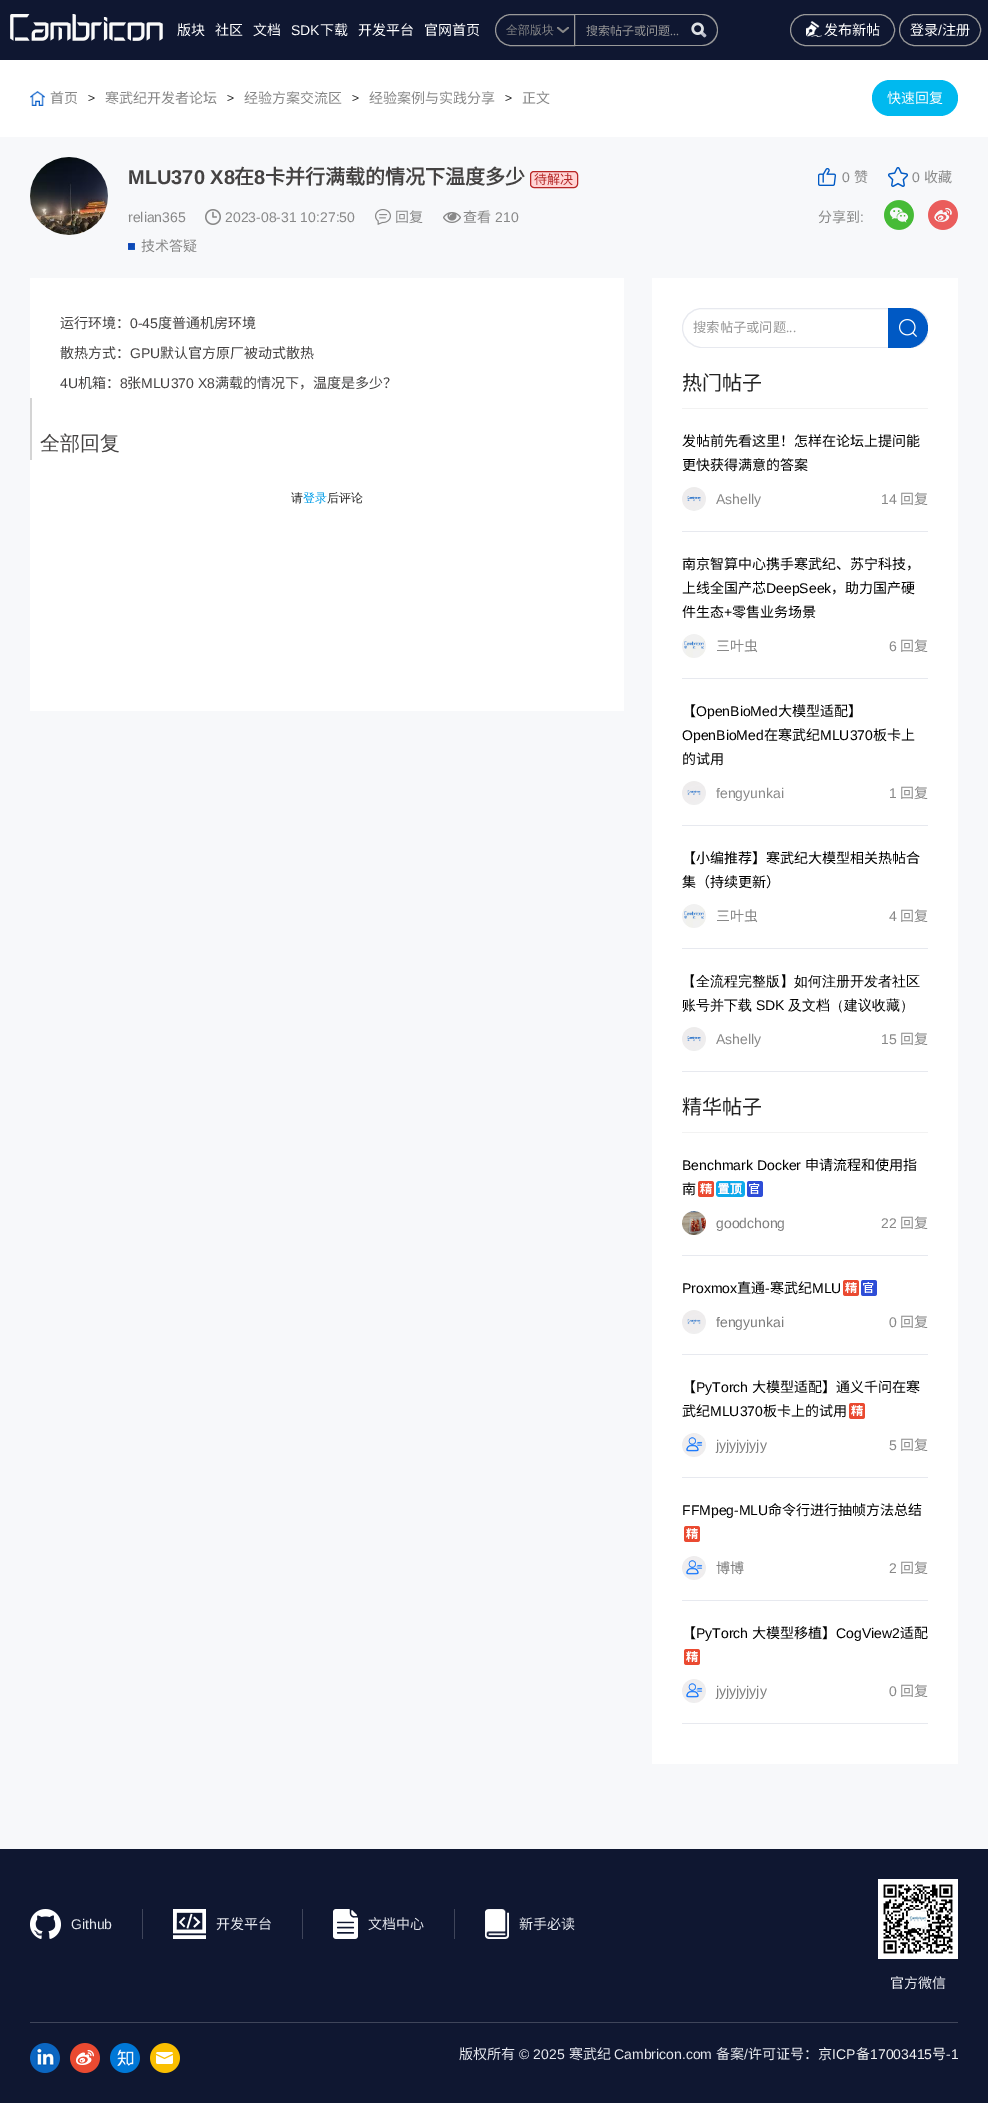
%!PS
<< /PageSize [988 2103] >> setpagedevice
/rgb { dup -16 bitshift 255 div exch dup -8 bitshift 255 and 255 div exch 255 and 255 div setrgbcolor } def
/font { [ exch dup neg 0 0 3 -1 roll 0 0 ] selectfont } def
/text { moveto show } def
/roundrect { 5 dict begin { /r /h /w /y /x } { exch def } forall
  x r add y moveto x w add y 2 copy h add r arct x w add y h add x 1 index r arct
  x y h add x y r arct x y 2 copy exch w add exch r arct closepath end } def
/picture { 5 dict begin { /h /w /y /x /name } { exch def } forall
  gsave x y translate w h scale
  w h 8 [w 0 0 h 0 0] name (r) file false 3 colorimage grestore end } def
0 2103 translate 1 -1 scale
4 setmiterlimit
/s1 { /NotoSansCJKSC-Regular 14 font 16#FFFFFF rgb } def
/s2 { /LiberationSans-Regular 14 font 16#FFFFFF rgb } def
/s3 { /WenQuanYiZenHei-Medium 12 font 16#888888 rgb } def
/s4 { /NotoSansCJKSC-Regular 12 font 16#969696 rgb } def
/s5 { /LiberationSerif-Regular 12 font 16#969696 rgb } def
/s6 { /NotoSansCJKSC-Regular 14 font 16#888888 rgb } def
/s7 { /LiberationSans-Regular 12 font 16#222222 rgb } def
/s8 { /LiberationSans-Bold 20 font 16#444242 rgb } def
/s9 { /NotoSansCJKSC-Bold 20 font 16#444242 rgb } def
/s10 { /NotoSansCJKSC-Regular 13 font 16#B52828 rgb } def
/s11 { /LiberationSans-Regular 14 font 16#888888 rgb } def
/s12 { /NotoSansCJKSC-Regular 14 font 16#444242 rgb } def
/s13 { /LiberationSans-Regular 14 font 16#444242 rgb } def
/s14 { /NotoSansCJKSC-Regular 13.25 font 16#969696 rgb } def
/s15 { /LiberationSerif-Regular 13.25 font 16#969696 rgb } def
/s16 { /NotoSansCJKSC-Regular 20 font 16#222222 rgb } def
/s17 { /NotoSansCJKSC-Regular 14 font 16#000000 rgb } def
/s18 { /LiberationSans-Regular 14 font 16#000000 rgb } def
/s19 { /WenQuanYiZenHei-Medium 14 font 16#000000 rgb } def
/s20 { /LiberationSans-Regular 14 font 16#7D7D7D rgb } def
/s21 { /NotoSansCJKSC-Regular 14 font 16#7D7D7D rgb } def
/s22 { /LiberationSans-Regular 14 font 16#E7E9EF rgb } def
/s23 { /NotoSansCJKSC-Regular 14 font 16#E7E9EF rgb } def
/s24 { /NotoSansCJKSC-Regular 14 font 16#F3F4F5 rgb } def
/s25 { /LiberationSans-Regular 14 font 16#F3F4F5 rgb } def
16#F7F8FA rgb
0 0 988 2103 rectfill
16#0F1731 rgb
0 0 988 60 rectfill
(pic1.raw) 10 14 153 27 picture
s1
(版块) 177 35 text
(社区) 215 35 text
(文档) 253 35 text
s2
(SDK) 291 35 text
s1
(下载) 320 35 text
(开发平台) 358 35 text
(官网首页) 424 35 text
(pic2.raw) 557 27 12 6 picture
16#999999 rgb
511 14.5 moveto 574.5 14.5 lineto 574.5 45.5 lineto 511 45.5 lineto 502.5 45.5 495.5 38.5 495.5 30 curveto 495.5 21.5 502.5 14.5 511 14.5 curveto closepath stroke
s3
(全部版块) 506 34 text
16#999999 rgb
575 14 moveto 702 14 lineto 711 14 718 21 718 30 curveto 718 39 711 46 702 46 curveto 575 46 lineto closepath 575 15 moveto 702 15 lineto 710 15 717 22 717 30 curveto 717 38 710 45 702 45 curveto 575 45 lineto closepath eofill
s4
(搜索帖子或问题) 586 35 text
s5
(...) 670 35 text
(pic3.raw) 691 22 16 16 picture
16#999999 rgb
790.5 14.5 104 31 15.5 roundrect stroke
(pic4.raw) 806 21 16 16 picture
s1
(发布新帖) 824 35 text
16#999999 rgb
899.5 14.5 81 31 15.5 roundrect stroke
s1
(登录) 910 35 text
s2
(/) 938 35 text
s1
(注册) 942 35 text
0 60 988 77 rectfill
(pic5.raw) 30 91 15 15 picture
s6
(首页) 50 103 text
s7
(>) 88 102 text
s6
(寒武纪开发者论坛) 105 103 text
s7
(>) 227 102 text
s6
(经验方案交流区) 244 103 text
s7
(>) 352 102 text
s6
(经验案例与实践分享) 369 103 text
s7
(>) 505 102 text
s6
(正文) 522 103 text
16#00B9EF rgb
872 80 86 36 18 roundrect fill
s1
(快速回复) 887 103 text
(pic6.raw) 30 157 78 78 picture
s8
(MLU370 X8) 128 184 text
s9
(在) 234 184 text
s8
(8) 254 184 text
s9
(卡并行满载的情况下温度多少) 265 184 text
16#FFD5D5 rgb
530.5 171.5 47 16 3.5 roundrect gsave fill grestore
16#B82626 rgb
stroke
s10
(待解决) 534 184 text
s11
(relian365) 128 222 text
(pic7.raw) 205 209 16 16 picture
(2023-08-31 10:27:50) 225 222 text
(pic8.raw) 375 209 16 16 picture
s6
(回复) 395 222 text
(pic9.raw) 443 212 18 11 picture
(查看) 463 222 text
s11
(210) 495 222 text
(pic10.raw) 128 243 7 7 picture
s6
(技术答疑) 141 251 text
(pic11.raw) 818 168 18 18 picture
s11
(0) 842 182 text
s6
(赞) 854 182 text
(pic12.raw) 888 167 20 20 picture
s11
(0) 912 182 text
s6
(收藏) 924 182 text
(分享到) 818 222 text
s11
(:) 860 222 text
(pic13.raw) 884 200 30 30 picture
(pic14.raw) 928 200 30 30 picture
16#FFFFFF rgb
30 278 594 433 rectfill
s12
(运行环境：) 60 328 text
s13
(0-45) 130 328 text
s12
(度普通机房环境) 158 328 text
(散热方式：) 60 358 text
s13
(GPU) 130 358 text
s12
(默认官方原厂被动式散热) 160 358 text
s13
(4U) 60 388 text
s12
(机箱：) 78 388 text
s13
(8) 120 388 text
s12
(张) 127 388 text
s13
(MLU370 X8) 141 388 text
s12
(满载的情况下，温度是多少？) 215 388 text
(pic15.raw) 30 398 333 106 picture
16#FFFFFF rgb
652 278 306 1486 rectfill
gsave
682 308 246 40 rectclip
16#E7E9EF rgb
682.5 308.5 247 39 19.5 roundrect stroke
grestore
s14
(搜索帖子或问题) 693 332 text
s15
(...) 786 332 text
16#0059C4 rgb
888 308 moveto 908 308 lineto 919 308 928 317 928 328 curveto 928 339 919 348 908 348 curveto 888 348 lineto closepath fill
(pic16.raw) 899 319 18 18 picture
16#F2F2F2 rgb
682 408 246 1 rectfill
s16
(热门帖子) 682 390 text
16#E7E9EF rgb
682 531 246 1 rectfill
s17
(发帖前先看这里！怎样在论坛上提问能) 682 446 text
(更快获得满意的答案) 682 470 text
(pic17.raw) 682 487 24 24 picture
s11
(Ashelly) 716 504 text
(14) 881 504 text
s6
(回复) 900 504 text
16#E7E9EF rgb
682 678 246 1 rectfill
s17
(南京智算中心携手寒武纪、苏宁科技，) 682 569 text
(上线全国产芯) 682 593 text
s18
(DeepSeek) 766 593 text
s17
(，助力国产硬) 831 593 text
(件生态) 682 617 text
s18
(+) 724 617 text
s17
(零售业务场景) 732 617 text
(pic18.raw) 682 634 24 24 picture
s6
(三叶虫) 716 651 text
s11
(6) 889 651 text
s6
(回复) 900 651 text
16#E7E9EF rgb
682 825 246 1 rectfill
s17
(【) 682 716 text
s18
(OpenBioMed) 696 716 text
s17
(大模型适配】) 778 716 text
s18
(OpenBioMed) 682 740 text
s17
(在寒武纪) 764 740 text
s18
(MLU370) 820 740 text
s17
(板卡上) 873 740 text
(的试用) 682 764 text
(pic19.raw) 682 781 24 24 picture
s11
(fengyunkai) 716 798 text
(1) 889 798 text
s6
(回复) 900 798 text
16#E7E9EF rgb
682 948 246 1 rectfill
s17
(【小编推荐】寒武纪大模型相关热帖合) 682 863 text
(集（持续更新）) 682 887 text
(pic18.raw) 682 904 24 24 picture
s6
(三叶虫) 716 921 text
s11
(4) 889 921 text
s6
(回复) 900 921 text
16#E7E9EF rgb
682 1071 246 1 rectfill
s19
(【全流程完整版】如何注册开发者社区) 682 986 text
(账号并下载) 682 1010 text
s18
(SDK) 756 1010 text
s19
(及文档（建议收藏）) 788 1010 text
(pic20.raw) 682 1027 24 24 picture
s11
(Ashelly) 716 1044 text
(15) 881 1044 text
s6
(回复) 900 1044 text
16#F2F2F2 rgb
682 1132 246 1 rectfill
s16
(精华帖子) 682 1114 text
16#E7E9EF rgb
682 1255 246 1 rectfill
s18
(Benchmark Docker) 682 1170 text
s17
(申请流程和使用指) 805 1170 text
(南) 682 1194 text
(pic21.raw) 698 1181 16 16 picture
(pic22.raw) 716 1181 29 16 picture
(pic23.raw) 747 1181 16 16 picture
(pic24.raw) 682 1211 24 24 picture
s20
(goodchong) 716 1228 text
s11
(22) 881 1228 text
s6
(回复) 900 1228 text
16#E7E9EF rgb
682 1354 246 1 rectfill
s18
(Proxmox) 682 1293 text
s17
(直通) 737 1293 text
s18
(-) 765 1293 text
s17
(寒武纪) 770 1293 text
s18
(MLU) 812 1293 text
(pic21.raw) 843 1280 16 16 picture
(pic23.raw) 861 1280 16 16 picture
(pic19.raw) 682 1310 24 24 picture
s20
(fengyunkai) 716 1327 text
s11
(0) 889 1327 text
s6
(回复) 900 1327 text
16#E7E9EF rgb
682 1477 246 1 rectfill
s17
(【) 682 1392 text
s18
(PyTorch) 696 1392 text
s17
(大模型适配】通义千问在寒) 752 1392 text
(武纪) 682 1416 text
s18
(MLU370) 710 1416 text
s17
(板卡上的试用) 763 1416 text
(pic21.raw) 849 1403 16 16 picture
(pic25.raw) 682 1433 24 24 picture
s20
(jyjyjyjyjy) 716 1450 text
s11
(5) 889 1450 text
s6
(回复) 900 1450 text
16#E7E9EF rgb
682 1600 246 1 rectfill
s18
(FFMpeg-MLU) 682 1515 text
s17
(命令行进行抽帧方法总结) 768 1515 text
(pic21.raw) 684 1526 16 16 picture
(pic26.raw) 682 1556 24 24 picture
s21
(博博) 716 1573 text
s11
(2) 889 1573 text
s6
(回复) 900 1573 text
16#E7E9EF rgb
682 1723 246 1 rectfill
s17
(【) 682 1638 text
s18
(PyTorch) 696 1638 text
s17
(大模型移植】) 752 1638 text
s18
(CogView2) 836 1638 text
s17
(适配) 900 1638 text
(pic21.raw) 684 1649 16 16 picture
(pic27.raw) 682 1679 24 24 picture
s20
(jyjyjyjyjy) 716 1696 text
s11
(0) 889 1696 text
s6
(回复) 900 1696 text
16#0F1731 rgb
0 1849 988 254 rectfill
16#3F455A rgb
30 2022 928 1 rectfill
(pic28.raw) 30 1909 31 30 picture
s22
(Github) 71 1929 text
16#3F455A rgb
142 1909 1 30 rectfill
(pic29.raw) 173 1909 33 30 picture
s23
(开发平台) 216 1929 text
16#3F455A rgb
302 1909 1 30 rectfill
(pic30.raw) 333 1909 25 30 picture
s23
(文档中心) 368 1929 text
16#3F455A rgb
454 1909 1 30 rectfill
(pic31.raw) 485 1909 24 30 picture
s23
(新手必读) 519 1929 text
(pic32.raw) 878 1879 80 80 picture
(官方微信) 890 1988 text
(pic33.raw) 30 2043 30 30 picture
(pic34.raw) 70 2043 30 30 picture
(pic35.raw) 110 2043 30 30 picture
(pic36.raw) 150 2043 30 30 picture
(版权所有) 459 2059 text
s22
(© 2025) 519 2059 text
s23
(寒武纪) 569 2059 text
s22
(Cambricon.com) 614 2059 text
s23
(备案) 716 2059 text
s22
(/) 744 2059 text
s23
(许可证号：) 748 2059 text
s24
(京) 818 2059 text
s25
(ICP) 832 2059 text
s24
(备) 856 2059 text
s25
(17003415) 870 2059 text
s24
(号) 932 2059 text
s25
(-1) 946 2059 text
showpage
